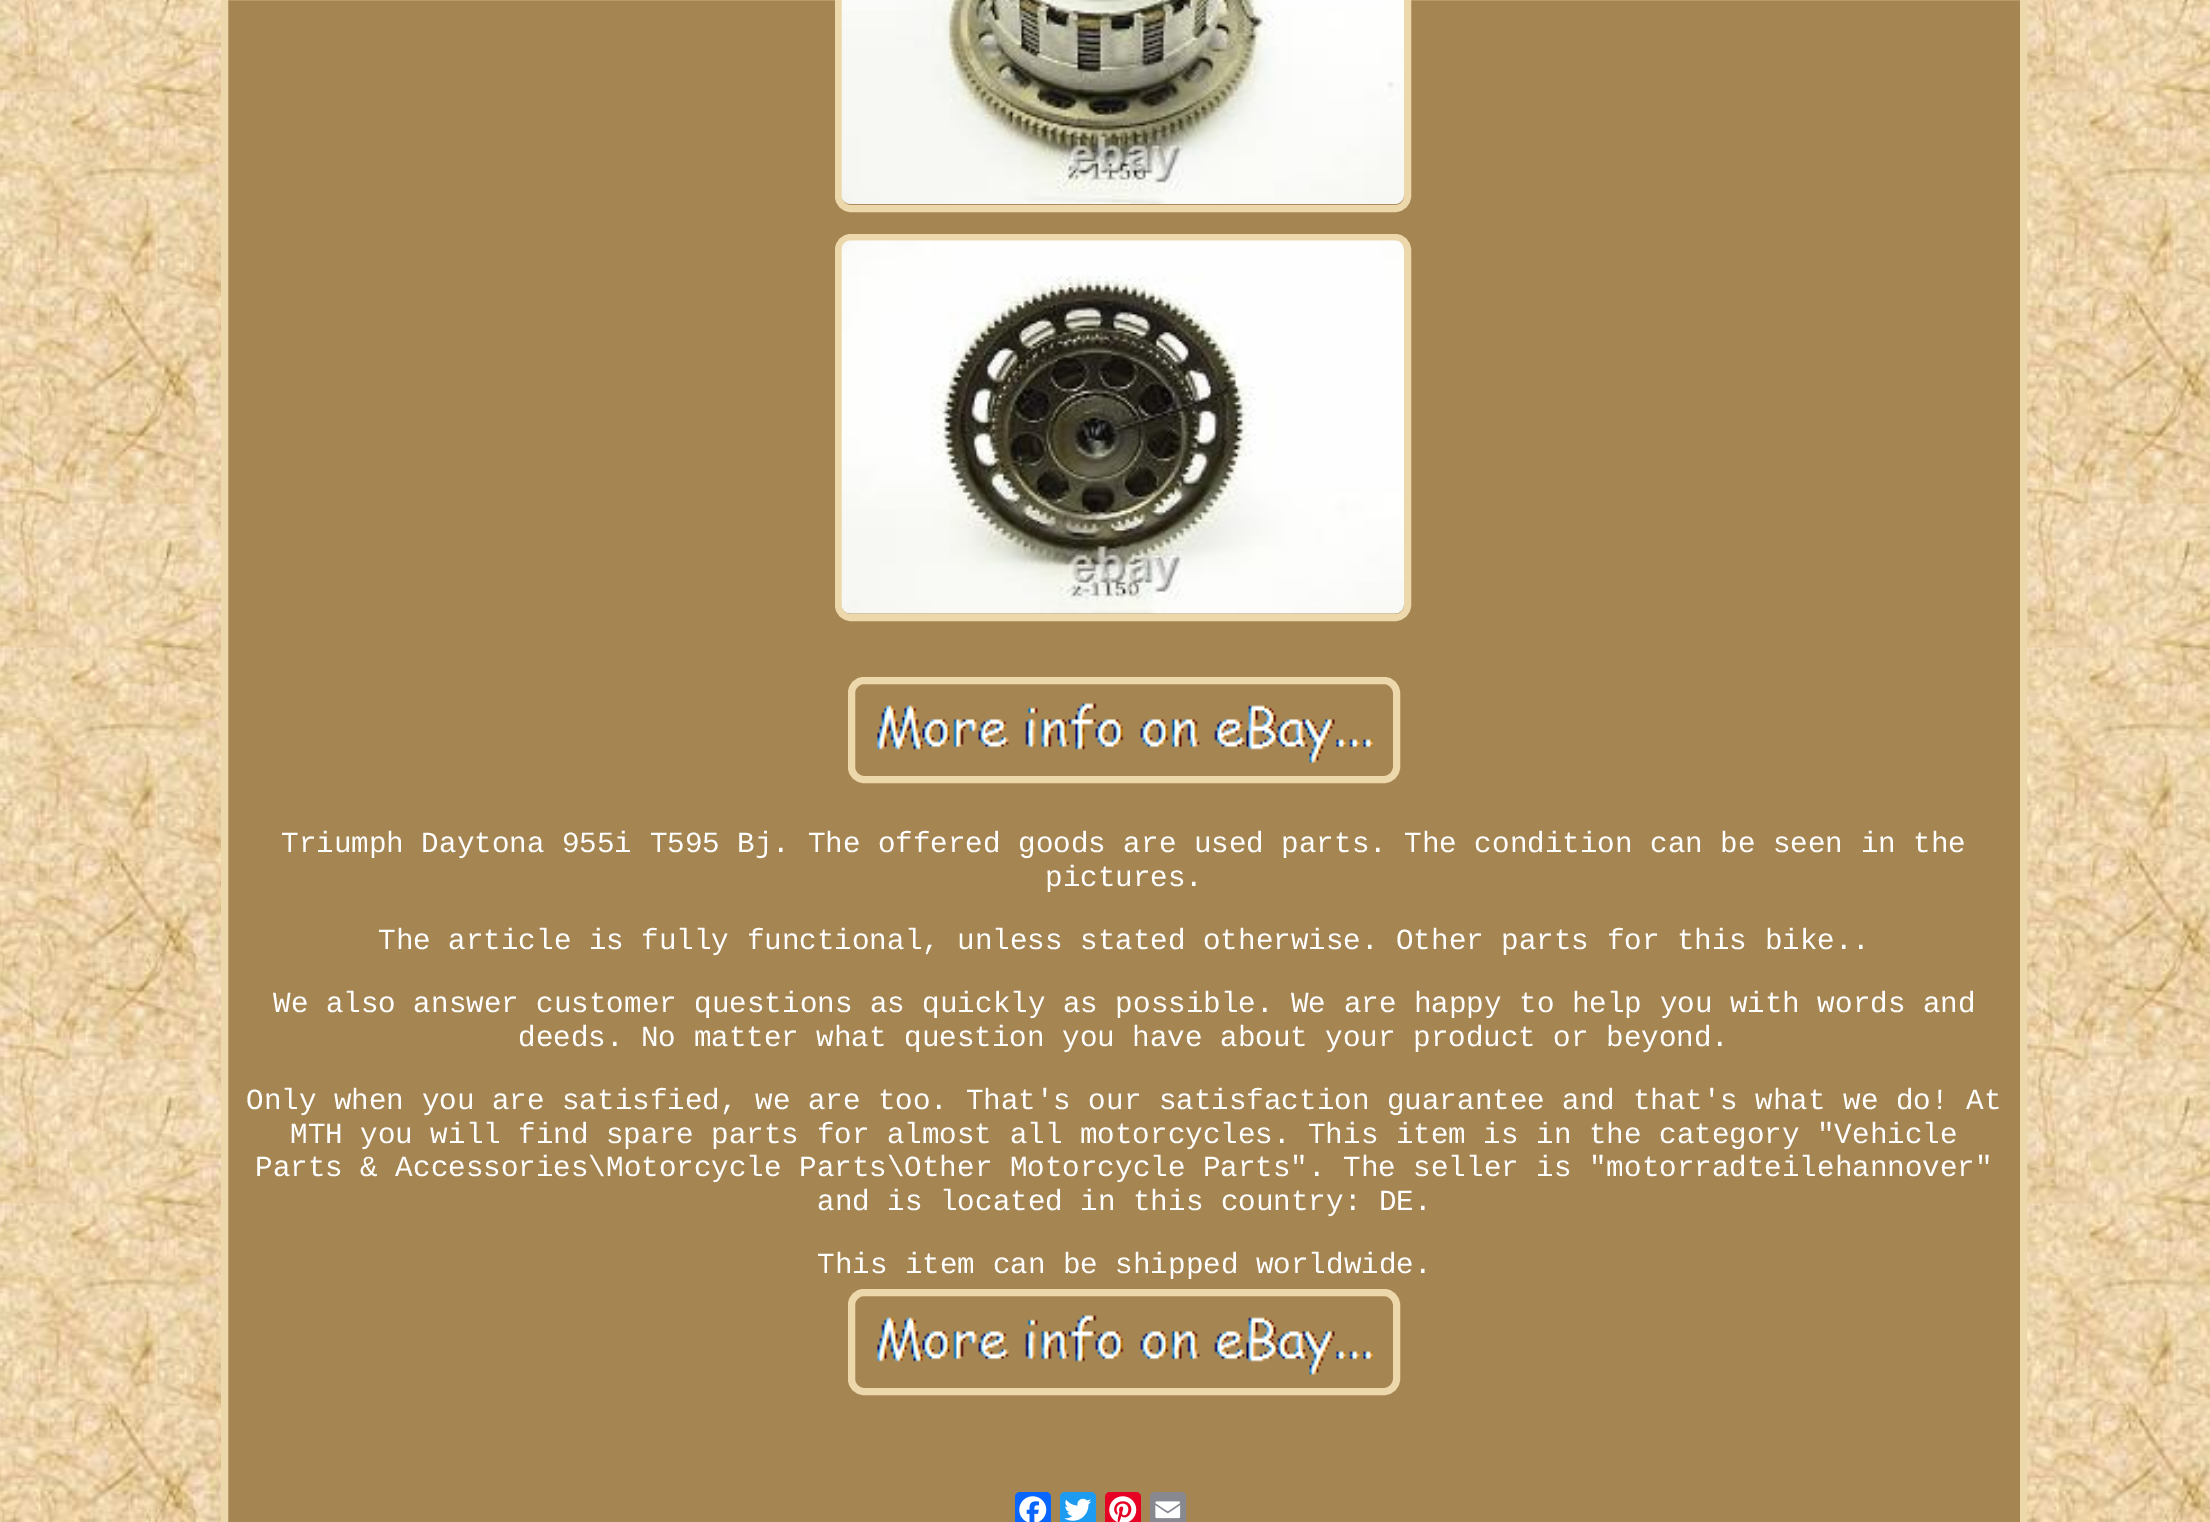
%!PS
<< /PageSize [2210 1522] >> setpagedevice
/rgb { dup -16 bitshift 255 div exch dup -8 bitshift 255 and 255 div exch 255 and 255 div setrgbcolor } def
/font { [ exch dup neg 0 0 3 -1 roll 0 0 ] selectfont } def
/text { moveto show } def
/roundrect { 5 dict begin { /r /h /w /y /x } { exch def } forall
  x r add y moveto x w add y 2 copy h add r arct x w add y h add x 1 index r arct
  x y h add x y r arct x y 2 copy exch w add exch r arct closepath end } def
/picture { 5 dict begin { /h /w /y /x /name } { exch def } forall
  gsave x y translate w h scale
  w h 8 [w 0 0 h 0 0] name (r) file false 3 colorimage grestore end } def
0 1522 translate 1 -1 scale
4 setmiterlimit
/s1 { /LiberationMono-Regular 29.25 font 16#FFFFFF rgb } def
16#FFFFFF rgb
0 0 2210 1522 rectfill
(pic1.raw) 0 0 2210 1522 picture
16#A58552 rgb
224.5 -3.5 moveto 2023.5 -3.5 lineto 2023.5 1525.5 lineto 224.5 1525.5 lineto closepath gsave fill grestore
16#EDD8AB rgb
7 setlinewidth
stroke
838.5 -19.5 569 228 12.5 roundrect stroke
(pic2.raw) 841 0 563 205 picture
838.5 237.5 569 380 12.5 roundrect stroke
(pic3.raw) 841 240 563 374 picture
851.5 680.5 545 99 12.5 roundrect stroke
(pic4.raw) 877 703 497 60 picture
s1
(Triumph Daytona 955i T595 Bj. The offered goods are used parts. The condition can be seen in the) 281 852 text
(pictures.) 1045 886 text
(The article is fully functional, unless stated otherwise. Other parts for this bike..) 378 949 text
(We also answer customer questions as quickly as possible. We are happy to help you with words and) 273 1012 text
(deeds. No matter what question you have about your product or beyond.) 518 1046 text
(Only when you are satisfied, we are too. That's our satisfaction guarantee and that's what we do! At) 246 1109 text
(MTH you will find spare parts for almost all motorcycles. This item is in the category "Vehicle) 290 1143 text
(Parts & Accessories\\Motorcycle Parts\\Other Motorcycle Parts". The seller is "motorradteilehannover") 255 1176 text
(and is located in this country: DE.) 817 1210 text
(This item can be shipped worldwide.) 817 1273 text
16#EDD8AB rgb
851.5 1292.5 545 99 12.5 roundrect stroke
(pic4.raw) 877 1315 497 60 picture
16#0866FF rgb
1015 1492 36 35 5 roundrect fill
(pic5.raw) 1019 1496 28 26 picture
16#1D9BF0 rgb
1060 1492 36 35 5 roundrect fill
(pic6.raw) 1064 1498 28 23 picture
16#E60023 rgb
1105 1492 36 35 5 roundrect fill
(pic7.raw) 1109 1496 28 26 picture
16#888990 rgb
1150 1492 36 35 5 roundrect fill
(pic8.raw) 1155 1501 26 18 picture
showpage
